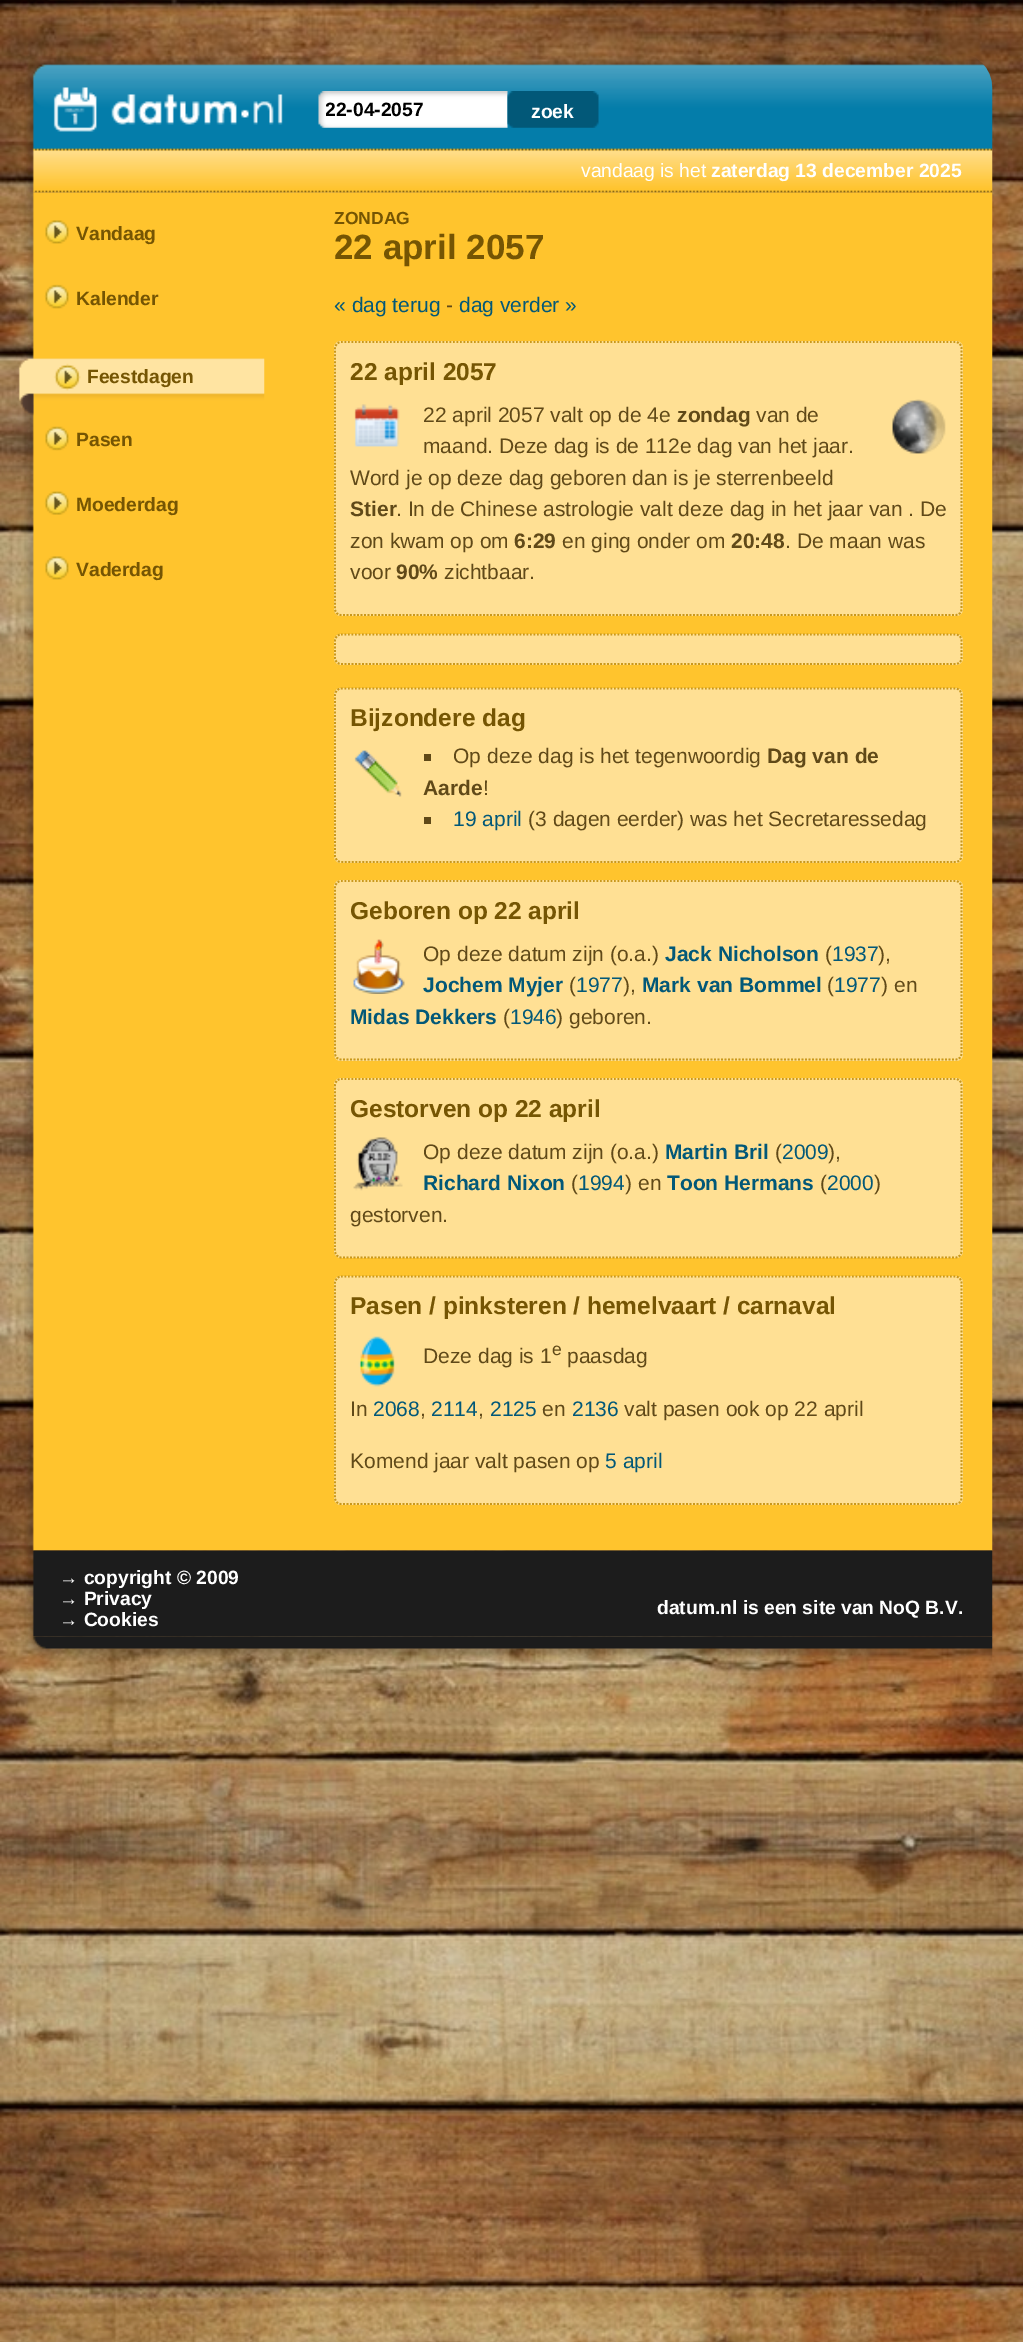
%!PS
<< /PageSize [1023 2342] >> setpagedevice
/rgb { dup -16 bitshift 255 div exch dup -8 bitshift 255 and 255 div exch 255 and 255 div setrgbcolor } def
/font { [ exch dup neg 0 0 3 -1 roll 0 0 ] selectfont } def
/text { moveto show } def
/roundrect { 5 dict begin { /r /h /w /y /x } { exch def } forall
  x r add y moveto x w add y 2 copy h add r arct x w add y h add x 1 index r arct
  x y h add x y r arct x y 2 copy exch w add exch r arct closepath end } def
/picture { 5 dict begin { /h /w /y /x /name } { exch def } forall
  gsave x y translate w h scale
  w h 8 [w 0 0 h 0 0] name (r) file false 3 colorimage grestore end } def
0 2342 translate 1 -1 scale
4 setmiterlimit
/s1 { /LiberationSans-Bold 19.25 font 16#000000 rgb } def
/s2 { /LiberationSans-Bold 19.25 font 16#FFFFFF rgb } def
/s3 { /LiberationSans-Regular 19.25 font 16#FFFFFF rgb } def
/s4 { /LiberationSans-Bold 19.25 font 16#755503 rgb } def
/s5 { /LiberationSans-Bold 17.5 font 16#755503 rgb } def
/s6 { /LiberationSans-Bold 35 font 16#755503 rgb } def
/s7 { /LiberationSans-Regular 21 font 16#025878 rgb } def
/s8 { /LiberationSans-Regular 21 font 16#604918 rgb } def
/s9 { /LiberationSans-Bold 24.5 font 16#755503 rgb } def
/s10 { /LiberationSans-Bold 21 font 16#604918 rgb } def
/s11 { /LiberationSans-Bold 21 font 16#025878 rgb } def
/s12 { /LiberationSans-Regular 17.5 font 16#604918 rgb } def
16#FFFFFF rgb
0 0 1023 2342 rectfill
(pic1.raw) 0 0 1023 2342 picture
(pic4.raw) 24 56 969 137 picture
(pic2.raw) 318 91 190 37 picture
gsave
326 100 175 21 rectclip
s1
(22-04-2057) 325 116 text
grestore
(pic3.raw) 507 91 92 37 picture
s2
(zoek) 531 118 text
(pic5.raw) 53 87 230 45 picture
s3
(vandaag is het) 581 177 text
s2
(zaterdag 13 december 2025) 711 177 text
(pic6.raw) 24 192 969 1359 picture
(pic7.raw) 45 220 24 24 picture
s4
(Vandaag) 76 240 text
(pic8.raw) 44 284 25 25 picture
(Kalender) 76 305 text
(pic9.raw) 18 358 247 58 picture
(Feestdagen) 87 383 text
(pic10.raw) 45 426 25 25 picture
(Pasen) 76 446 text
(pic11.raw) 44 491 26 24 picture
(Moederdag) 76 511 text
(pic12.raw) 45 556 24 24 picture
(Vaderdag) 76 576 text
s5
(ZONDAG) 334 224 text
s6
(22 april 2057) 334 259 text
s7
(« dag terug) 334 312 text
s8
(-) 446 312 text
s7
(dag verder ») 459 312 text
16#FFE094 rgb
334 341 629 275 7 roundrect fill
16#C9981C rgb
1.8 setlinewidth
[1.75 1.75] 0 setdash
341 342 moveto 955.5 342 lineto 959 342 961.5 345 961.5 348 curveto 961.5 609 lineto 961.5 612.5 959 615 955.5 615 curveto 341 615 lineto 338 615 335 612.5 335 609 curveto 335 348 lineto 335 345 338 342 341 342 curveto closepath stroke
s9
(22 april 2057) 350 380 text
(pic13.raw) 354 404 46 43 picture
(pic14.raw) 892 399 54 55 picture
s8
(22 april 2057 valt op de 4e) 423 422 text
s10
(zondag) 677 422 text
s8
(van de) 756 422 text
(maand. Deze dag is de 112e dag van het jaar.) 423 453 text
(Word je op deze dag geboren dan is je sterrenbeeld) 350 485 text
s10
(Stier) 350 516 text
s8
(. In de Chinese astrologie valt deze dag in het jaar van . De) 396 516 text
(zon kwam op om) 350 548 text
s10
(6:29) 514 548 text
s8
(en ging onder om) 562 548 text
s10
(20:48) 731 548 text
s8
(. De maan was) 785 548 text
(voor) 350 579 text
s10
(90%) 396 579 text
s8
(zichtbaar.) 444 579 text
16#FFE094 rgb
334 634 629 31 7 roundrect fill
16#C9981C rgb
341 634.5 moveto 955.5 634.5 lineto 959 634.5 961.5 637 961.5 640.5 curveto 961.5 658 lineto 961.5 661.5 959 664 955.5 664 curveto 341 664 lineto 338 664 335 661.5 335 658 curveto 335 640.5 lineto 335 637 338 634.5 341 634.5 curveto closepath stroke
16#FFE094 rgb
334 688 629 175 7 roundrect fill
16#C9981C rgb
341 688.5 moveto 955.5 688.5 lineto 959 688.5 961.5 691.5 961.5 695 curveto 961.5 856 lineto 961.5 859 959 862 955.5 862 curveto 341 862 lineto 338 862 335 859 335 856 curveto 335 695 lineto 335 691.5 338 688.5 341 688.5 curveto closepath stroke
s9
(Bijzondere dag) 350 726 text
(pic15.raw) 354 750 48 47 picture
16#604918 rgb
424 754 7 7 rectfill
s8
(Op deze dag is het tegenwoordig) 453 763 text
s10
(Dag van de) 767 763 text
(Aarde) 423 795 text
s8
(!) 483 795 text
424 817 7 7 rectfill
s7
(19 april) 453 826 text
s8
(\(3 dagen eerder\) was het Secretaressedag) 528 826 text
16#FFE094 rgb
334 880 629 181 7 roundrect fill
16#C9981C rgb
341 881 moveto 955.5 881 lineto 959 881 961.5 884 961.5 887 curveto 961.5 1053.5 lineto 961.5 1057 959 1059.5 955.5 1059.5 curveto 341 1059.5 lineto 338 1059.5 335 1057 335 1053.5 curveto 335 887 lineto 335 884 338 881 341 881 curveto closepath stroke
s9
(Geboren op 22 april) 350 919 text
(pic16.raw) 353 939 52 55 picture
s8
(Op deze datum zijn \(o.a.\)) 423 961 text
s11
(Jack Nicholson) 665 961 text
s8
(\() 825 961 text
s7
(1937) 832 961 text
s8
(\),) 878 961 text
s11
(Jochem Myjer) 423 992 text
s8
(\() 569 992 text
s7
(1977) 576 992 text
s8
(\),) 623 992 text
s11
(Mark van Bommel) 642 992 text
s8
(\() 827 992 text
s7
(1977) 834 992 text
s8
(\) en) 881 992 text
s11
(Midas Dekkers) 350 1024 text
s8
(\() 503 1024 text
s7
(1946) 510 1024 text
s8
(\) geboren.) 556 1024 text
16#FFE094 rgb
334 1078 629 180 7 roundrect fill
16#C9981C rgb
341 1079 moveto 955.5 1079 lineto 959 1079 961.5 1081.5 961.5 1085 curveto 961.5 1251 lineto 961.5 1254.5 959 1257.5 955.5 1257.5 curveto 341 1257.5 lineto 338 1257.5 335 1254.5 335 1251 curveto 335 1085 lineto 335 1081.5 338 1079 341 1079 curveto closepath stroke
s9
(Gestorven op 22 april) 350 1117 text
(pic17.raw) 353 1137 50 54 picture
s8
(Op deze datum zijn \(o.a.\)) 423 1159 text
s11
(Martin Bril) 665 1159 text
s8
(\() 775 1159 text
s7
(2009) 782 1159 text
s8
(\),) 828 1159 text
s11
(Richard Nixon) 423 1190 text
s8
(\() 571 1190 text
s7
(1994) 578 1190 text
s8
(\) en) 625 1190 text
s11
(Toon Hermans) 667 1190 text
s8
(\() 820 1190 text
s7
(2000) 827 1190 text
s8
(\)) 874 1190 text
(gestorven.) 350 1222 text
16#FFE094 rgb
334 1276 629 229 7 roundrect fill
16#C9981C rgb
341 1276.5 moveto 955.5 1276.5 lineto 959 1276.5 961.5 1279.5 961.5 1283 curveto 961.5 1498 lineto 961.5 1501.5 959 1504 955.5 1504 curveto 341 1504 lineto 338 1504 335 1501.5 335 1498 curveto 335 1283 lineto 335 1279.5 338 1276.5 341 1276.5 curveto closepath stroke
s9
(Pasen / pinksteren / hemelvaart / carnaval) 350 1314 text
(pic18.raw) 358 1336 38 51 picture
s8
(Deze dag is 1) 423 1363 text
s12
(e) 552 1355 text
s8
(paasdag) 567 1363 text
(In) 350 1416 text
s7
(2068) 373 1416 text
s8
(,) 420 1416 text
s7
(2114) 431 1416 text
s8
(,) 478 1416 text
s7
(2125) 490 1416 text
s8
(en) 542 1416 text
s7
(2136) 572 1416 text
s8
(valt pasen ook op 22 april) 624 1416 text
(Komend jaar valt pasen op) 350 1468 text
s7
(5 april) 605 1468 text
(pic19.raw) 24 1550 969 87 picture
s2
(→ copyright © 2009) 59 1584 text
(→ Privacy) 59 1605 text
(→ Cookies) 59 1626 text
(datum.nl is een site van NoQ B.V.) 657 1614 text
(pic20.raw) 25 1636 968 25 picture
showpage
